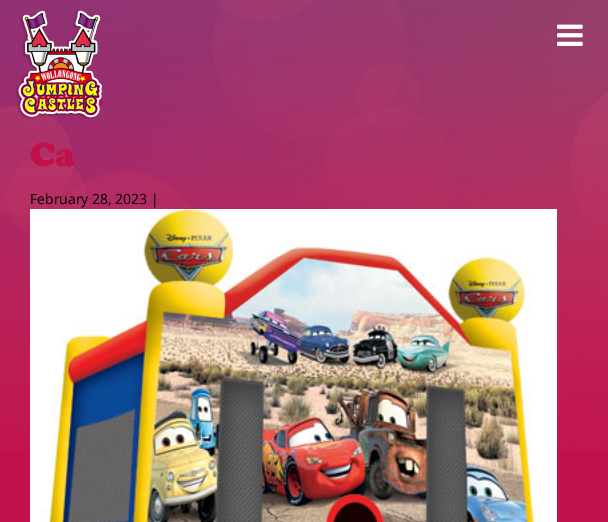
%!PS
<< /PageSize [608 522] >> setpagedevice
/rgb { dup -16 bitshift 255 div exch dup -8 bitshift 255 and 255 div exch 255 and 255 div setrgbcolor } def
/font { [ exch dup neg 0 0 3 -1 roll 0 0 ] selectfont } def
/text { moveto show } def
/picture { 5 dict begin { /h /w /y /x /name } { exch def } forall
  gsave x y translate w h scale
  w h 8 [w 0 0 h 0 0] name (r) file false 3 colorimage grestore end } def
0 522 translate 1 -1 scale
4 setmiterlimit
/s1 { /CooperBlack-Black 35 font 16#C0114A rgb } def
/s2 { /OpenSans-Regular 14 font 16#000000 rgb } def
16#C0114A rgb
0 0 608 522 rectfill
(pic1.raw) 0 0 608 451 picture
(pic2.raw) 15 10 87 109 picture
(pic3.raw) 557 24 26 22 picture
s1
(Ca) 30 166 text
s2
(February 28, 2023 |) 30 204 text
(pic4.raw) 30 209 527 313 picture
showpage
